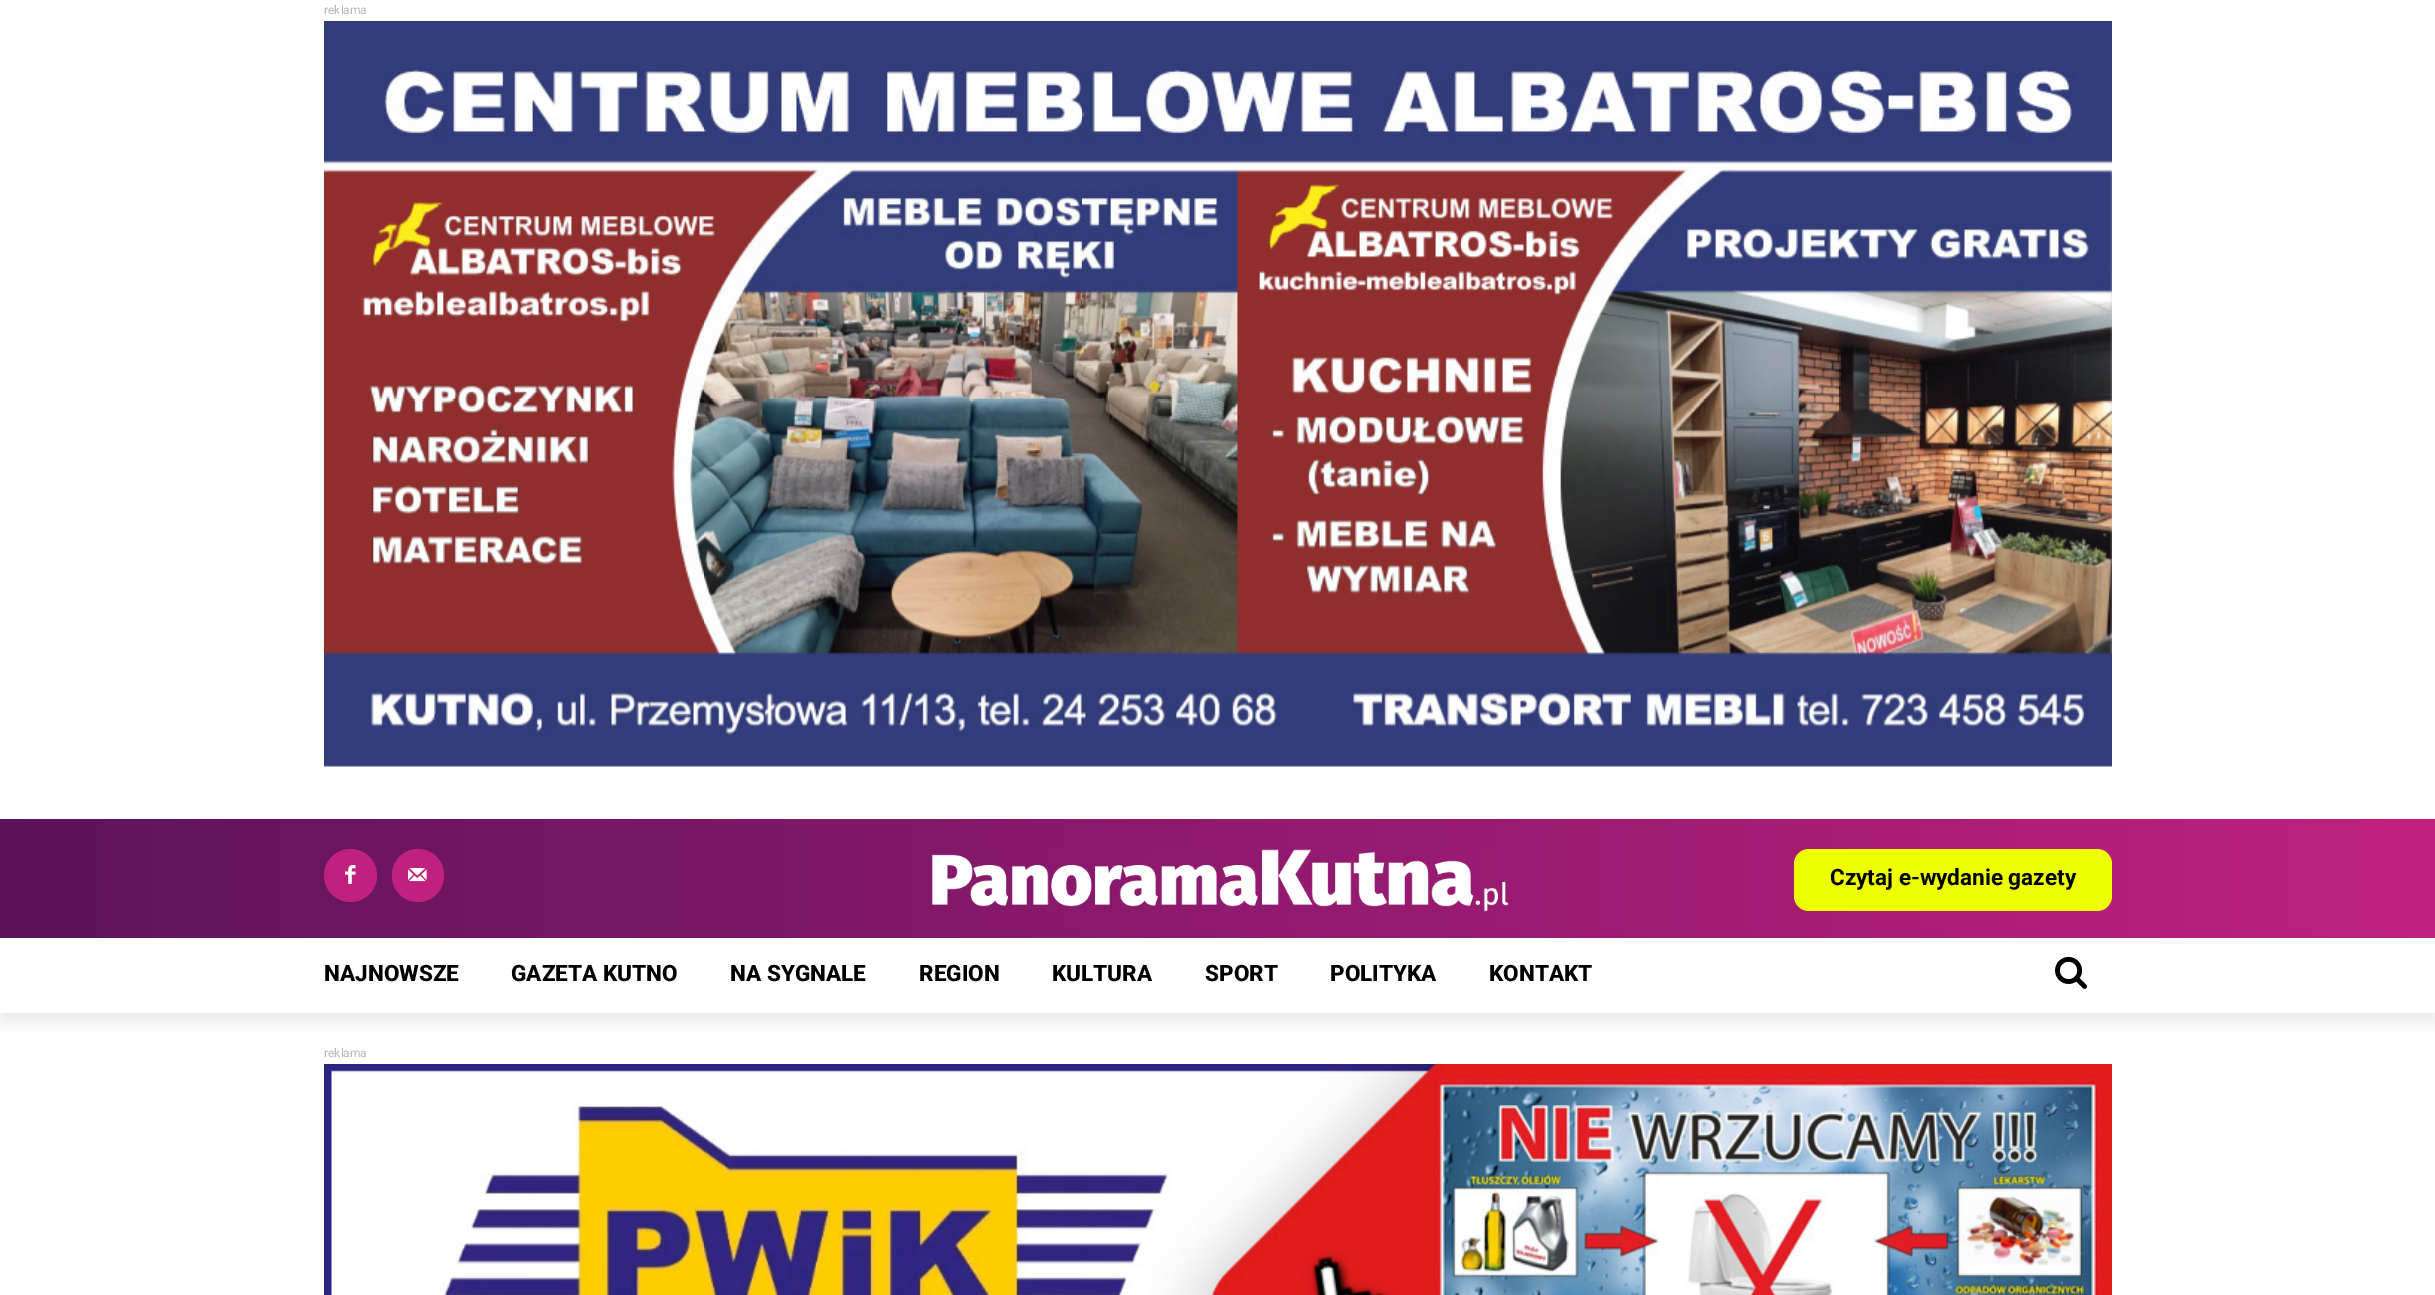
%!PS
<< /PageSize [2435 1295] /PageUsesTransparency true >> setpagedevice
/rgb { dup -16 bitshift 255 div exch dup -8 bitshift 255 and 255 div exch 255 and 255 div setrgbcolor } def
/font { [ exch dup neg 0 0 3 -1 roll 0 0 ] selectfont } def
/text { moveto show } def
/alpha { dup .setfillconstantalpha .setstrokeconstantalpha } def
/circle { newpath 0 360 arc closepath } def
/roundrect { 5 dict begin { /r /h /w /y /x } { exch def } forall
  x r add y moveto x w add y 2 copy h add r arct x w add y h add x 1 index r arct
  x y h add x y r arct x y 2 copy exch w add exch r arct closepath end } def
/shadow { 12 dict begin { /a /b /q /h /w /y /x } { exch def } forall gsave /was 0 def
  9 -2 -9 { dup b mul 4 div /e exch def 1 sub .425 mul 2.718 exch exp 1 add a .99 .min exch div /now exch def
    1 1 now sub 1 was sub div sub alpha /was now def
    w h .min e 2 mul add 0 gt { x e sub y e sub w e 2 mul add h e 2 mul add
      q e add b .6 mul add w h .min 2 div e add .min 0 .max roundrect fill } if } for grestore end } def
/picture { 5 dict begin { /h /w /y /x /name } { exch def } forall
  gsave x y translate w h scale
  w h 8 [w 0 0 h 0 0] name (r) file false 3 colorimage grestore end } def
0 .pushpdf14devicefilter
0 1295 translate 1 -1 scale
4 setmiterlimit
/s1 { /Roboto-Regular 12 font 16#B7B7B7 rgb } def
/s2 { /Roboto-Bold 22.5 font 16#000000 rgb } def
/s3 { /Roboto-ExtraBold 22.5 font 16#000000 rgb } def
16#FFFFFF rgb
0 0 2435 1295 rectfill
s1
(reklama) 324 14 text
(pic1.raw) 324 21 1788 746 picture
gsave 0 819 moveto 2435 819 lineto 2435 938 lineto 0 938 lineto closepath clip newpath
<< /ShadingType 2 /ColorSpace /DeviceRGB /Coords [0 878 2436 878] /Extend [true true] /Function << /FunctionType 2 /Domain [0 1] /C0 [0.365 0.075 0.361] /C1 [0.753 0.129 0.498] /N 1 >> >> shfill grestore
16#C0217E rgb
350.5 875.5 26.5 circle fill
(pic2.raw) 345 865 11 19 picture
392 849 52 53 26 roundrect fill
(pic3.raw) 408 868 19 14 picture
(pic4.raw) 932 849 577 63 picture
16#EEFF00 rgb
1794 849 318 62 15 roundrect fill
s2
(Czytaj e-wydanie gazety) 1830 885 text
gsave
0 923 moveto 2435 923 lineto 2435 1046 lineto 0 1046 lineto closepath 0 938 moveto 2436 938 lineto 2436 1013 lineto 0 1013 lineto closepath eoclip newpath
0 947 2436 75 0 7.5 0.08 shadow
grestore
s3
(NAJNOWSZE) 324 981 text
(GAZETA KUTNO) 511 981 text
(NA SYGNALE) 730 981 text
(REGION) 919 981 text
(KULTURA) 1052 981 text
(SPORT) 1205 981 text
(POLITYKA) 1330 981 text
(KONTAKT) 1489 981 text
(pic5.raw) 2055 956 32 33 picture
s1
(reklama) 324 1057 text
(pic6.raw) 324 1064 1788 231 picture
.poppdf14devicefilter showpage
